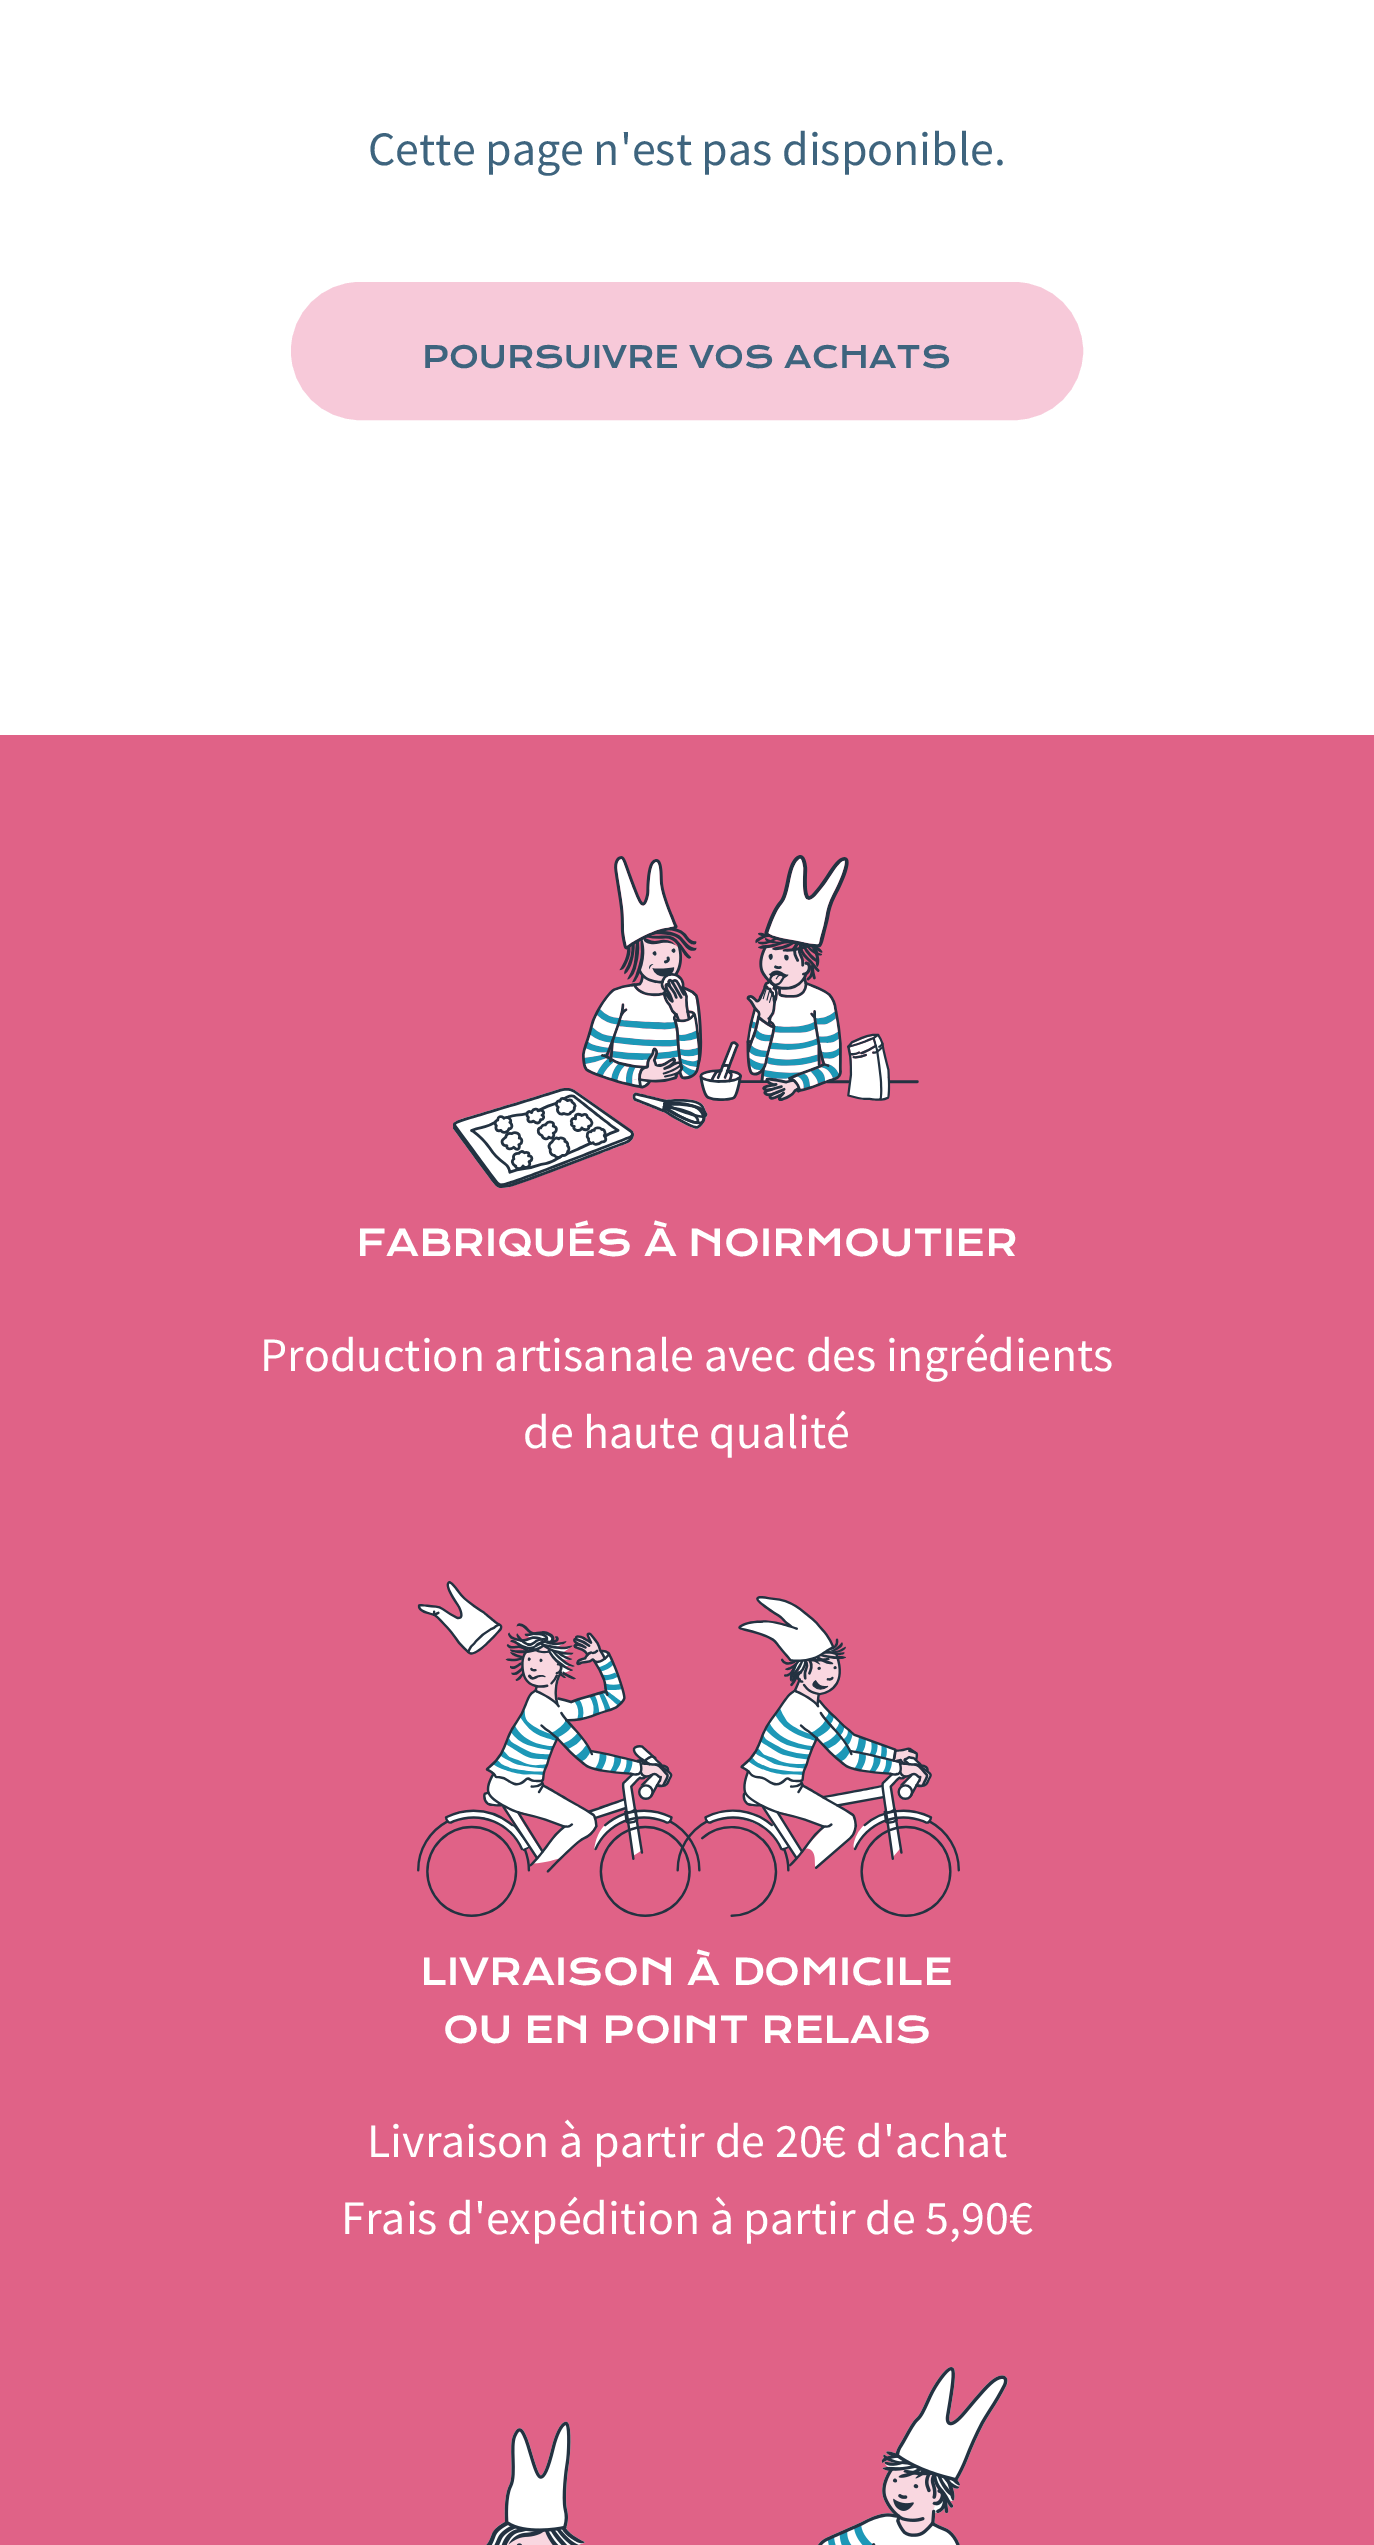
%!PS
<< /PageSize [1374 2545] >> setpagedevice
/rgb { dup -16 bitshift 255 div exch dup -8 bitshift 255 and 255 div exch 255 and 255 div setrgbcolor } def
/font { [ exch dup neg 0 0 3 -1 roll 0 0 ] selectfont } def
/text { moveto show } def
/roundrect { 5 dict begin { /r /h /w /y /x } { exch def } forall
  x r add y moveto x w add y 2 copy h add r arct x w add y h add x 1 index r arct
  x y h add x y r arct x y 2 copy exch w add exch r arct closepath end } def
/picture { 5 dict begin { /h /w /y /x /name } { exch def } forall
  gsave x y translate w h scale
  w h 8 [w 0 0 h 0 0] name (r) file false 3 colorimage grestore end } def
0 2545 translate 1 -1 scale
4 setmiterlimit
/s1 { /Mada-Regular 48 font 16#3E647E rgb } def
/s2 { /KronaOne-Regular 30 font 16#3E647E rgb } def
/s3 { /KronaOne-Regular 36 font 16#FFFFFF rgb } def
/s4 { /Mada-Regular 48 font 16#FFFFFF rgb } def
16#FFFFFF rgb
0 0 1374 2545 rectfill
s1
(Cette page n'est pas disponible.) 368 165 text
16#F7C9D9 rgb
294 285 786 132 66 roundrect gsave fill grestore
6 setlinewidth
stroke
s2
(POURSUIVRE VOS ACHATS) 422 368 text
16#E06287 rgb
0 735 1374 1810 rectfill
(pic1.raw) 453 855 466 333 picture
s3
(FABRIQUÉS À NOIRMOUTIER) 356 1256 text
s4
(Production artisanale avec des ingrédients) 260 1371 text
(de haute qualité) 523 1448 text
(pic2.raw) 417 1581 543 336 picture
s3
(LIVRAISON À DOMICILE) 420 1985 text
(OU EN POINT RELAIS) 443 2043 text
s4
(Livraison à partir de 20€ d'achat) 367 2157 text
(Frais d'expédition à partir de 5,90€) 341 2234 text
(pic3.raw) 486 2367 522 178 picture
showpage
